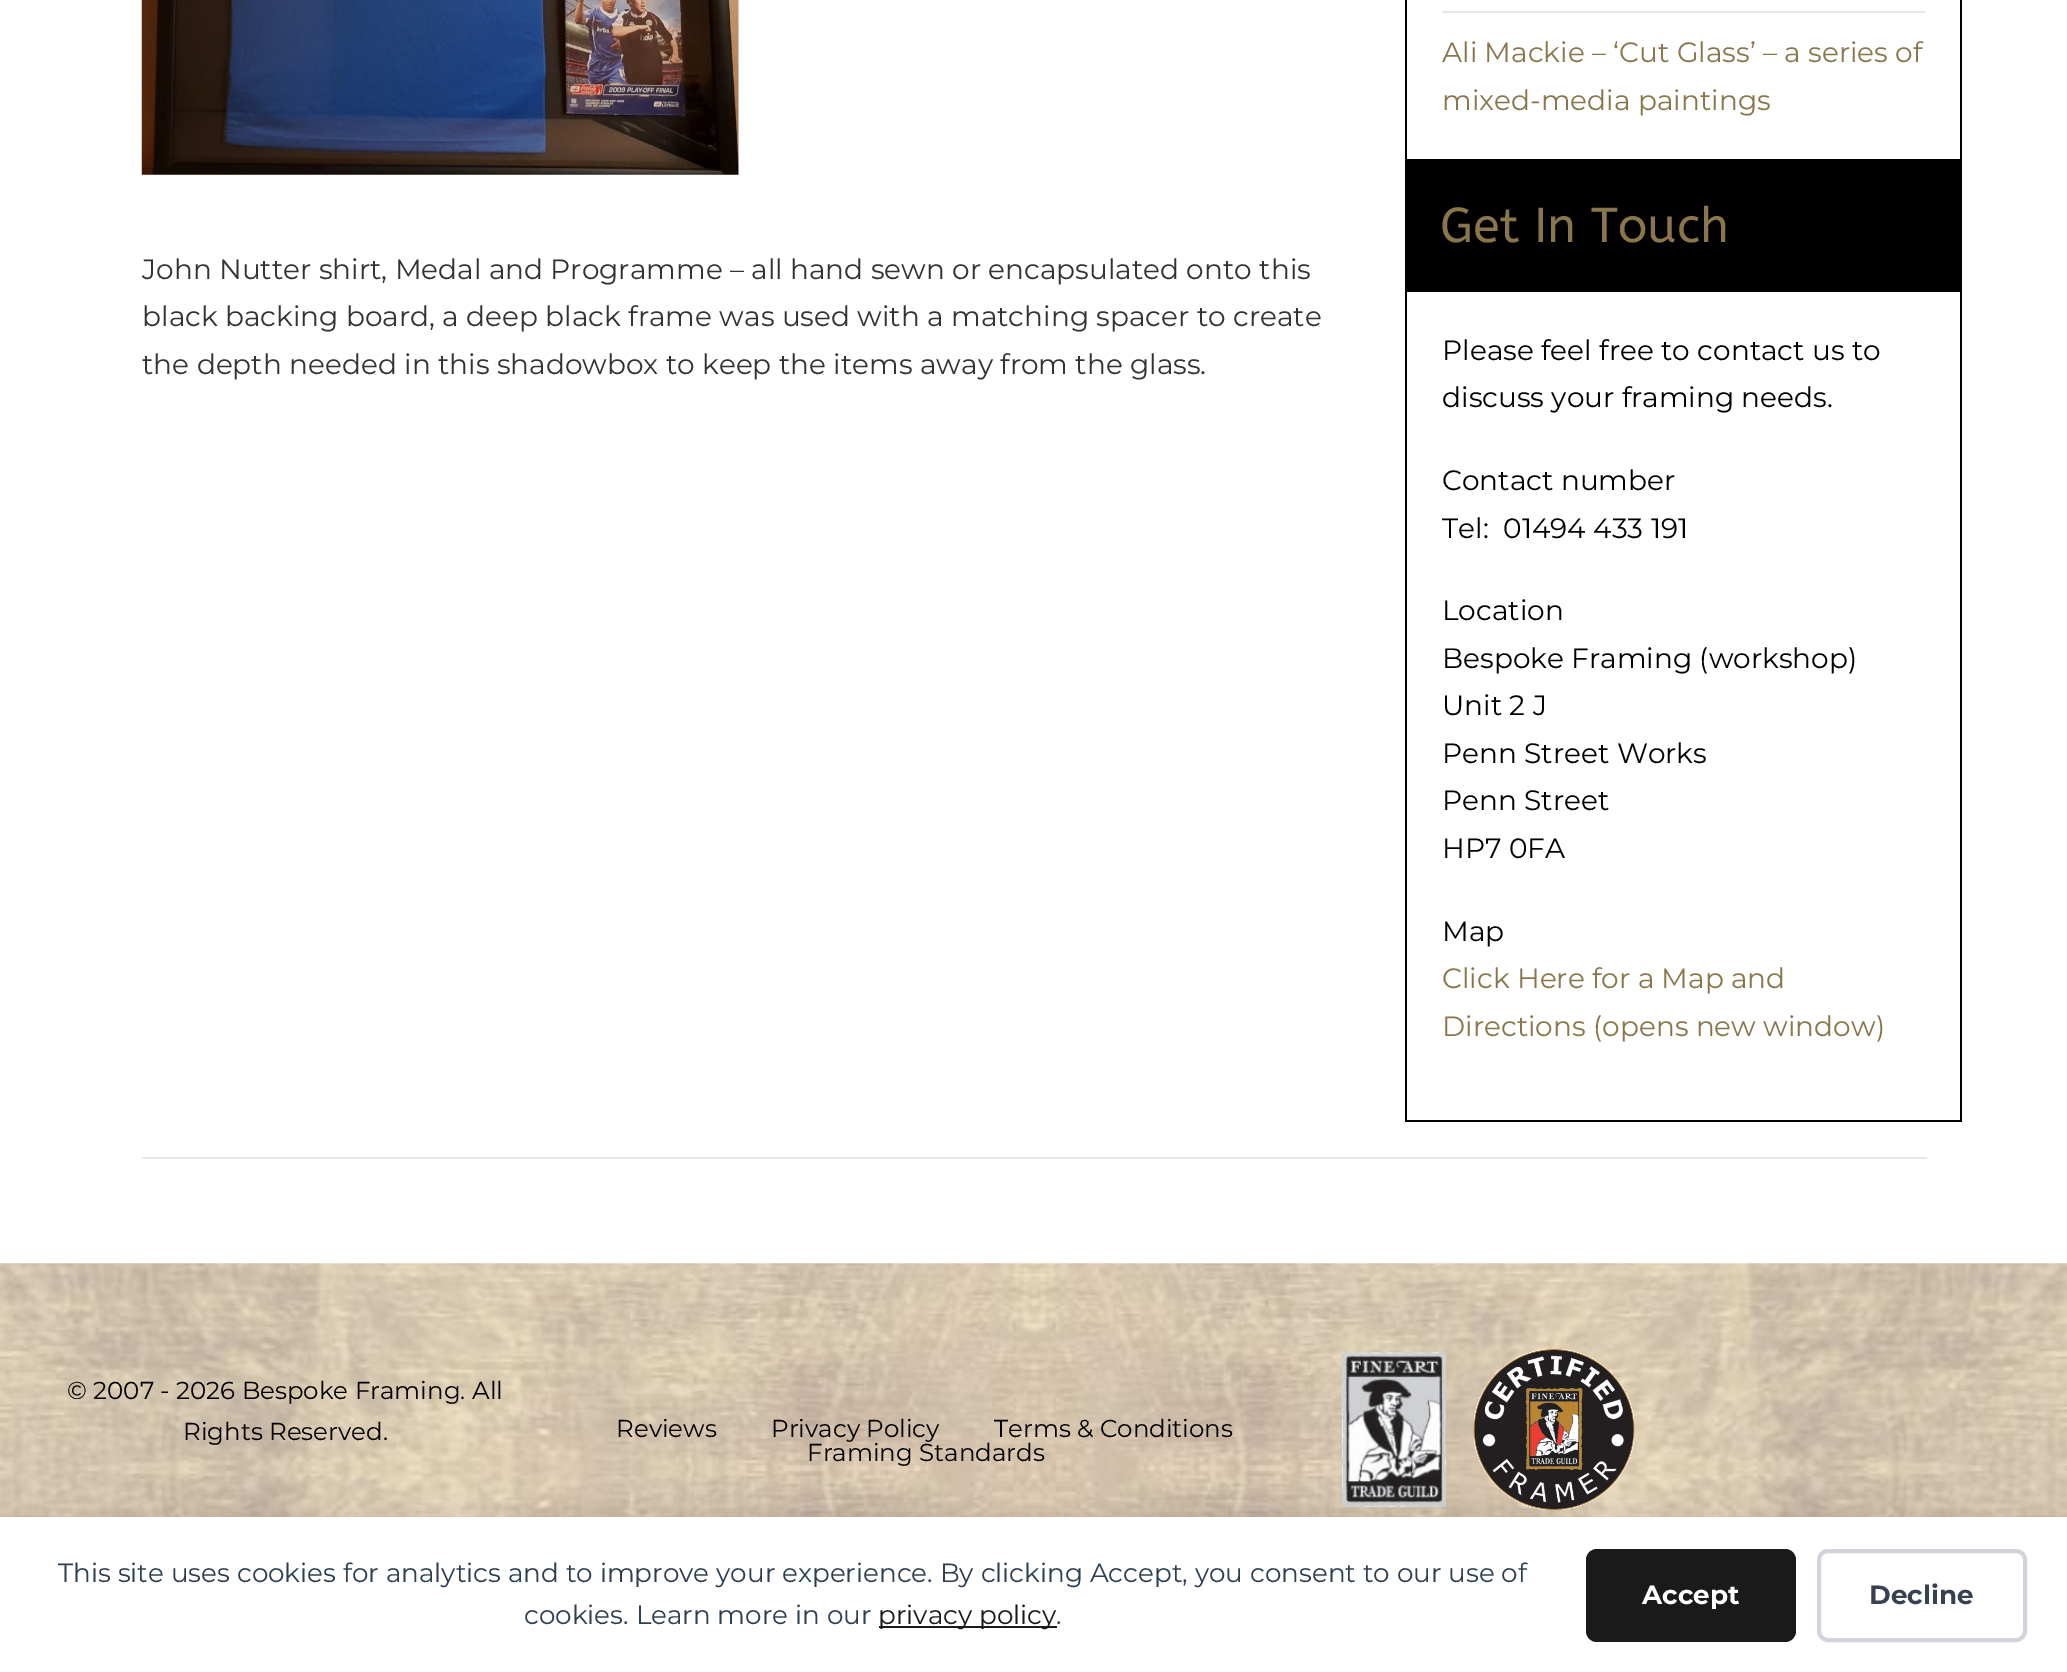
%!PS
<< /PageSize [2067 1672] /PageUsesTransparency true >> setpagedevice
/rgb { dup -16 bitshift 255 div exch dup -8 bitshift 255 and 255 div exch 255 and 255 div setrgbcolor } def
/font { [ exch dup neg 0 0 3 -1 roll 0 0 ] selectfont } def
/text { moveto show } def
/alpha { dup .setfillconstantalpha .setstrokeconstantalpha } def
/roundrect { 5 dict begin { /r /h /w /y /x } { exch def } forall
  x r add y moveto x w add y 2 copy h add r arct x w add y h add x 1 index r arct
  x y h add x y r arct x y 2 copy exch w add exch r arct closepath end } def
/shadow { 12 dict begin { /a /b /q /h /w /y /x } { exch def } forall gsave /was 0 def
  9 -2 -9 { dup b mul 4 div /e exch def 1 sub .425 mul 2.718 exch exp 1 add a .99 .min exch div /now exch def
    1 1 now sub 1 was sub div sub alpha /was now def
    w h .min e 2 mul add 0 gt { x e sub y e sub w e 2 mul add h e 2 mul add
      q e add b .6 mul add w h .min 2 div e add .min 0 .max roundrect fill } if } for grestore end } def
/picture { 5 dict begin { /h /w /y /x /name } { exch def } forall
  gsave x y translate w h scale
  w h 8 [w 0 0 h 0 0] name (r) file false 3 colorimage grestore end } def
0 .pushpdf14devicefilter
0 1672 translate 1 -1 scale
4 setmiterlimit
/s1 { /Montserrat-Regular 28 font 16#333333 rgb } def
/s2 { /Montserrat-Regular 28 font 16#89764B rgb } def
/s3 { /ABeeZee-Regular 49 font 16#89764B rgb } def
/s4 { /Montserrat-Regular 28 font 16#000000 rgb } def
/s5 { /Montserrat-Regular 24.5 font 16#000000 rgb } def
/s6 { /Montserrat-Regular 26.25 font 16#2C3E50 rgb } def
/s7 { /Montserrat-Regular 26.25 font 16#1A1A1A rgb } def
/s8 { /Montserrat-Bold 26.25 font 16#FFFFFF rgb } def
/s9 { /Montserrat-Bold 26.25 font 16#374151 rgb } def
16#FFFFFF rgb
0 0 2067 1672 rectfill
(pic1.raw) 141 0 598 175 picture
s1
(John Nutter shirt, Medal and Programme – all hand sewn or encapsulated onto this) 142 279 text
(black backing board, a deep black frame was used with a matching spacer to create) 142 326 text
(the depth needed in this shadowbox to keep the items away from the glass.) 142 374 text
16#000000 rgb
1405 0 557 1122 rectfill
16#FFFFFF rgb
1407 0 553 159 rectfill
16#E6E6E6 rgb
1442 11 483 2 rectfill
s2
(Ali Mackie – ‘Cut Glass’ – a series of) 1442 62 text
(mixed-media paintings) 1442 110 text
s3
(Get In Touch) 1440 242 text
16#FFFFFF rgb
1407 292 553 828 rectfill
s4
(Please feel free to contact us to) 1442 360 text
(discuss your framing needs.) 1442 407 text
(Contact number) 1442 490 text
(Tel:  01494 433 191) 1442 538 text
(Location) 1442 620 text
(Bespoke Framing \(workshop\)) 1442 668 text
(Unit 2 J) 1442 715 text
(Penn Street Works) 1442 763 text
(Penn Street) 1442 810 text
(HP7 0FA) 1442 858 text
(Map) 1442 941 text
s2
(Click Here for a Map and) 1442 988 text
(Directions \(opens new window\)) 1442 1036 text
16#E8E8E8 rgb
142 1157 1785 2 rectfill
(pic2.raw) 0 1263 2067 254 picture
s5
(© 2007 - 2026 Bespoke Framing. All) 67 1399 text
(Rights Reserved.) 183 1440 text
(Reviews) 616 1437 text
(Privacy Policy) 771 1437 text
(Terms & Conditions) 994 1437 text
(Framing Standards) 807 1461 text
(pic3.raw) 1341 1352 105 155 picture
(pic4.raw) 1473 1349 162 161 picture
0 1514 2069 156 0 9 0.08 shadow
16#FFFFFF rgb
0 1517 2067 155 rectfill
s6
(This site uses cookies for analytics and to improve your experience. By clicking Accept, you consent to our use of) 58 1582 text
(cookies. Learn more in our) 524 1624 text
16#1A1A1A rgb
879 1626 178 2 rectfill
(privacy policy) 878 1624 text
s6
(.) 1056 1624 text
16#1A1A1A rgb
1586 1549 210 93 11 roundrect fill
s8
(Accept) 1642 1604 text
16#D1D5DB rgb
4 setlinewidth
1819 1551 206 89 9 roundrect stroke
s9
(Decline) 1869 1604 text
.poppdf14devicefilter showpage
